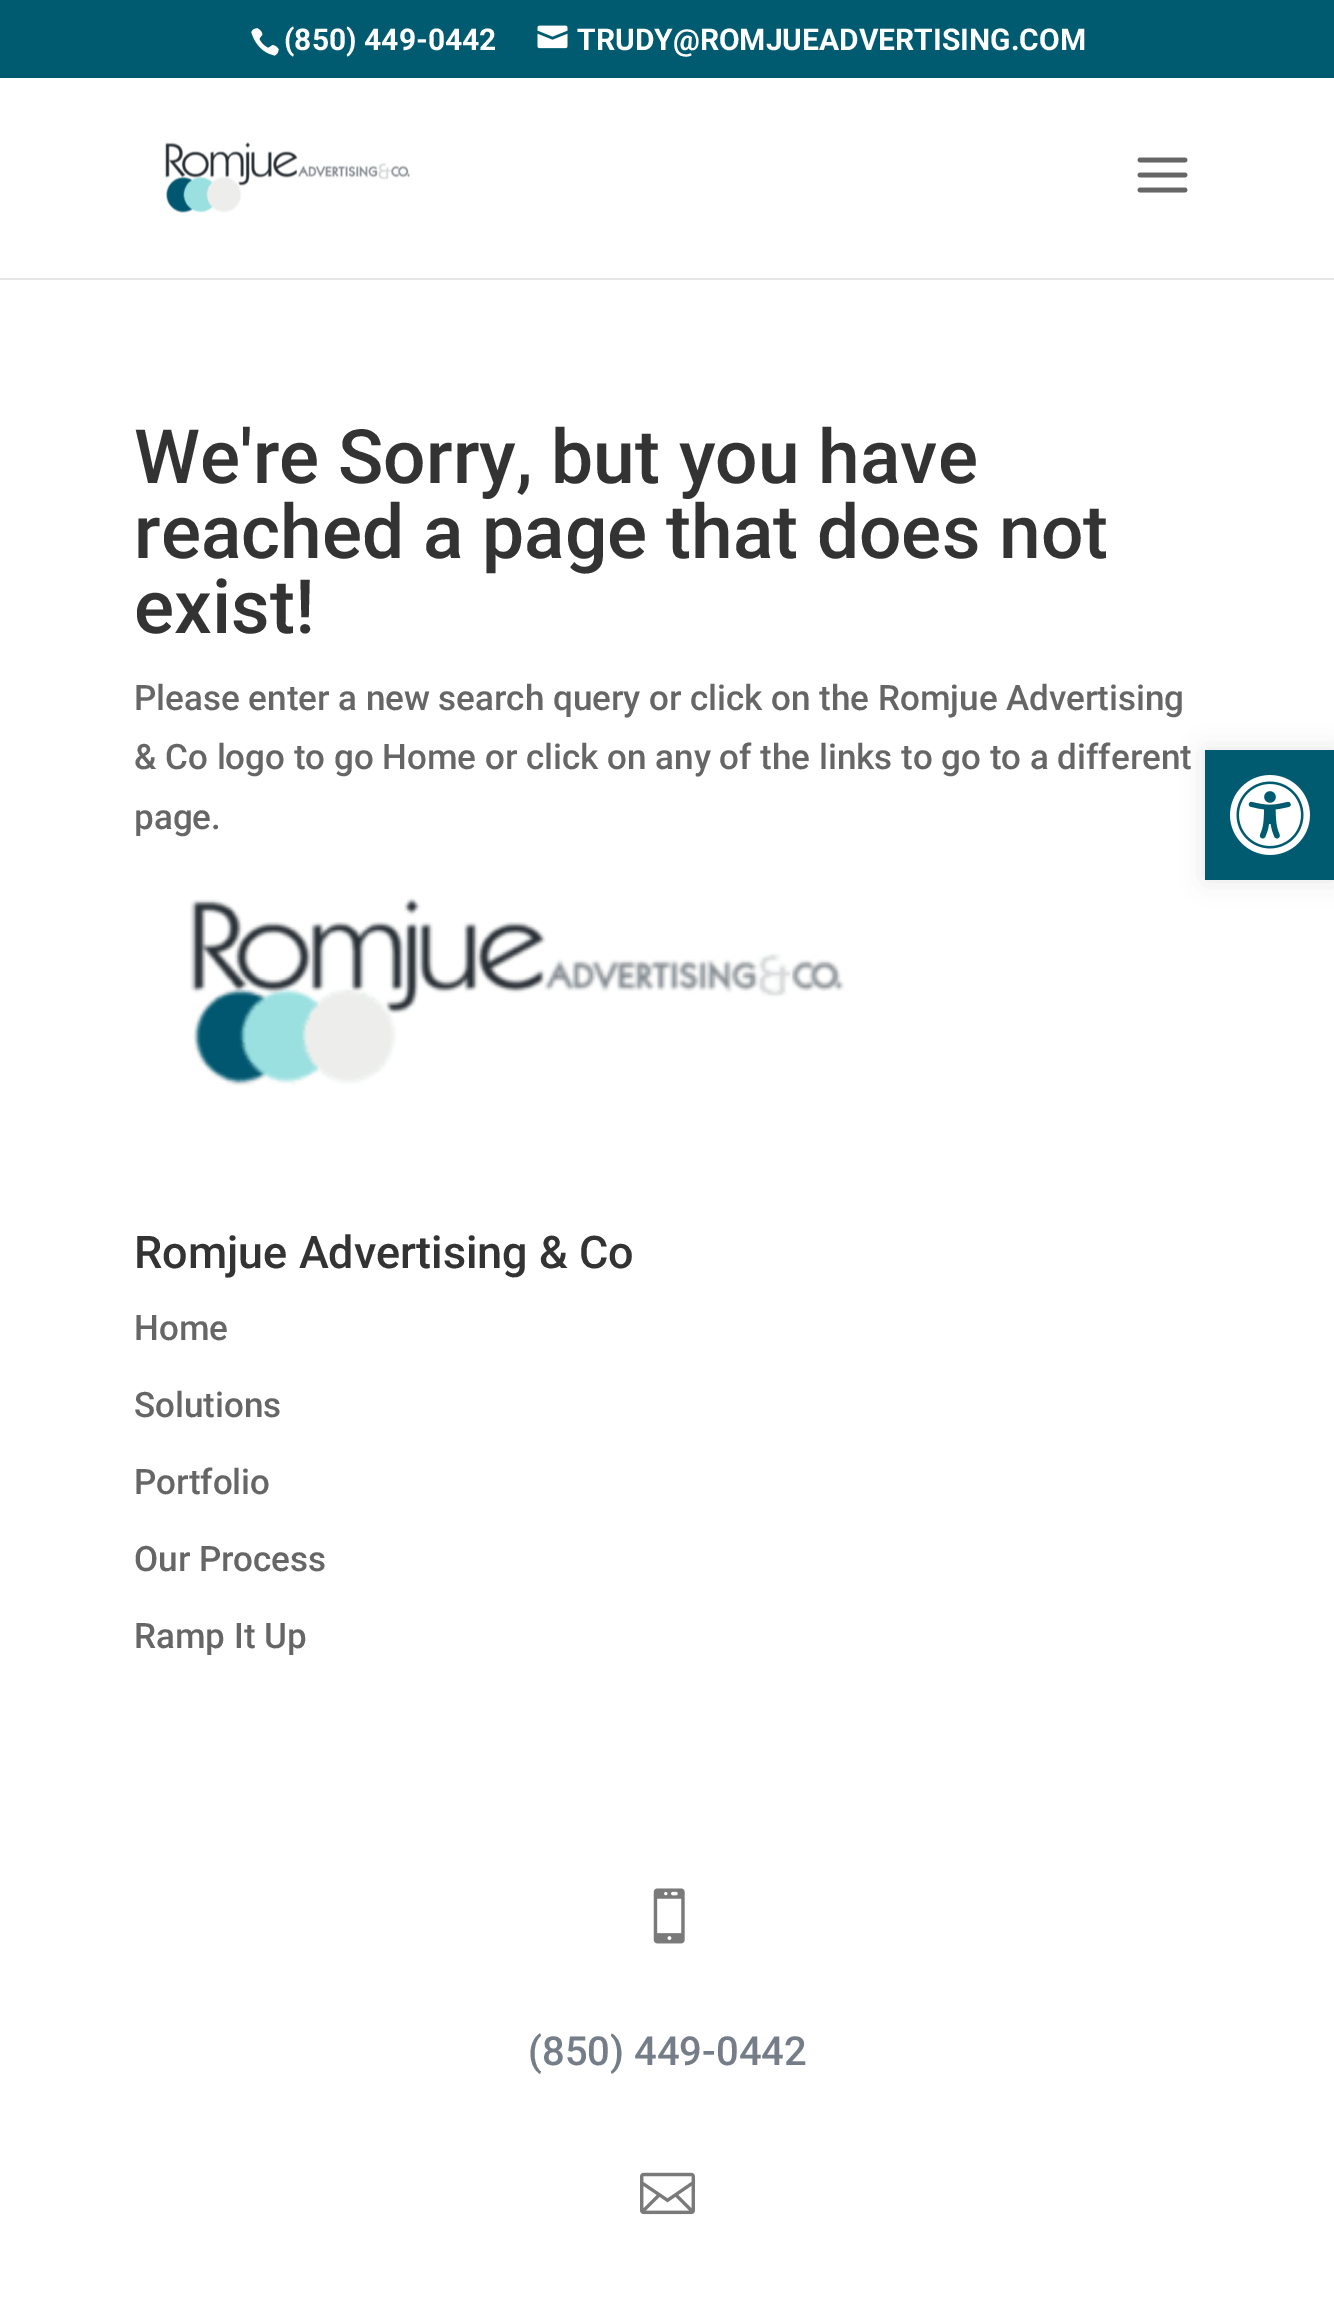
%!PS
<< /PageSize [1334 2321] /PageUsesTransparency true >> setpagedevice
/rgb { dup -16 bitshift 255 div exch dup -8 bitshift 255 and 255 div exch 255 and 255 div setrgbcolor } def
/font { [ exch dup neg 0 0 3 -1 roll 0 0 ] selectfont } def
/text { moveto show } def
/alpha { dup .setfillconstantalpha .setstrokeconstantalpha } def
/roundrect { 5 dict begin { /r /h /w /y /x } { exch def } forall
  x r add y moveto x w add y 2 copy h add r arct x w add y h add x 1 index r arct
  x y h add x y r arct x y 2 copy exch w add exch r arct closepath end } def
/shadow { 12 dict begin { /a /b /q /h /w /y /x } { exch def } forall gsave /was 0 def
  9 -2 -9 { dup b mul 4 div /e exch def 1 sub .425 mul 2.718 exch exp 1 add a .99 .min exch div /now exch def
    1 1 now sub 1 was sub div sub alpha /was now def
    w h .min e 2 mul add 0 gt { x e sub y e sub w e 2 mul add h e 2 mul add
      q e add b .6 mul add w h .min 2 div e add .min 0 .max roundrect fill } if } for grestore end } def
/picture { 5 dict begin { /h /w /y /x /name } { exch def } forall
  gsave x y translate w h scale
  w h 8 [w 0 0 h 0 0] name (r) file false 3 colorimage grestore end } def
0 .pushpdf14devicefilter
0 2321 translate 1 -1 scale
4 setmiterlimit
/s1 { /Roboto-Bold 30 font 16#FFFFFF rgb } def
/s2 { /Roboto-Medium 75 font 16#333333 rgb } def
/s3 { /Roboto-Medium 35 font 16#666666 rgb } def
/s4 { /Roboto-Medium 45 font 16#333333 rgb } def
/s5 { /Roboto-Medium 40 font 16#747D88 rgb } def
16#FFFFFF rgb
0 0 1334 2321 rectfill
16#005B70 rgb
0 0 1334 78 rectfill
(pic1.raw) 251 28 28 28 picture
s1
(\(850\) 449-0442) 284 50 text
(pic2.raw) 537 25 31 24 picture
(TRUDY@ROMJUEADVERTISING.COM) 577 50 text
16#E6E6E6 rgb
0 278 1334 2 rectfill
(pic3.raw) 164 142 247 71 picture
(pic4.raw) 1137 157 51 36 picture
s2
(We're Sorry, but you have) 134 483 text
(reached a page that does not) 134 558 text
(exist!) 134 633 text
s3
(Please enter a new search query or click on the Romjue Advertising) 134 710 text
(& Co logo to go Home or click on any of the links to go to a different) 134 769 text
(page.) 134 829 text
(pic5.raw) 190 897 655 189 picture
s4
(Romjue Advertising & Co) 134 1268 text
s3
(Home) 134 1340 text
(Solutions) 134 1417 text
(Portfolio) 134 1494 text
(Our Process) 134 1571 text
(Ramp It Up) 134 1648 text
(pic6.raw) 653 1888 32 56 picture
s5
(\(850\) 449-0442) 528 2065 text
(pic7.raw) 640 2172 55 43 picture
16#000000 rgb
1205 750 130 130 0 12.5 0.1 shadow
16#005B70 rgb
1205 750 129 130 rectfill
(pic8.raw) 1230 775 80 80 picture
.poppdf14devicefilter showpage
